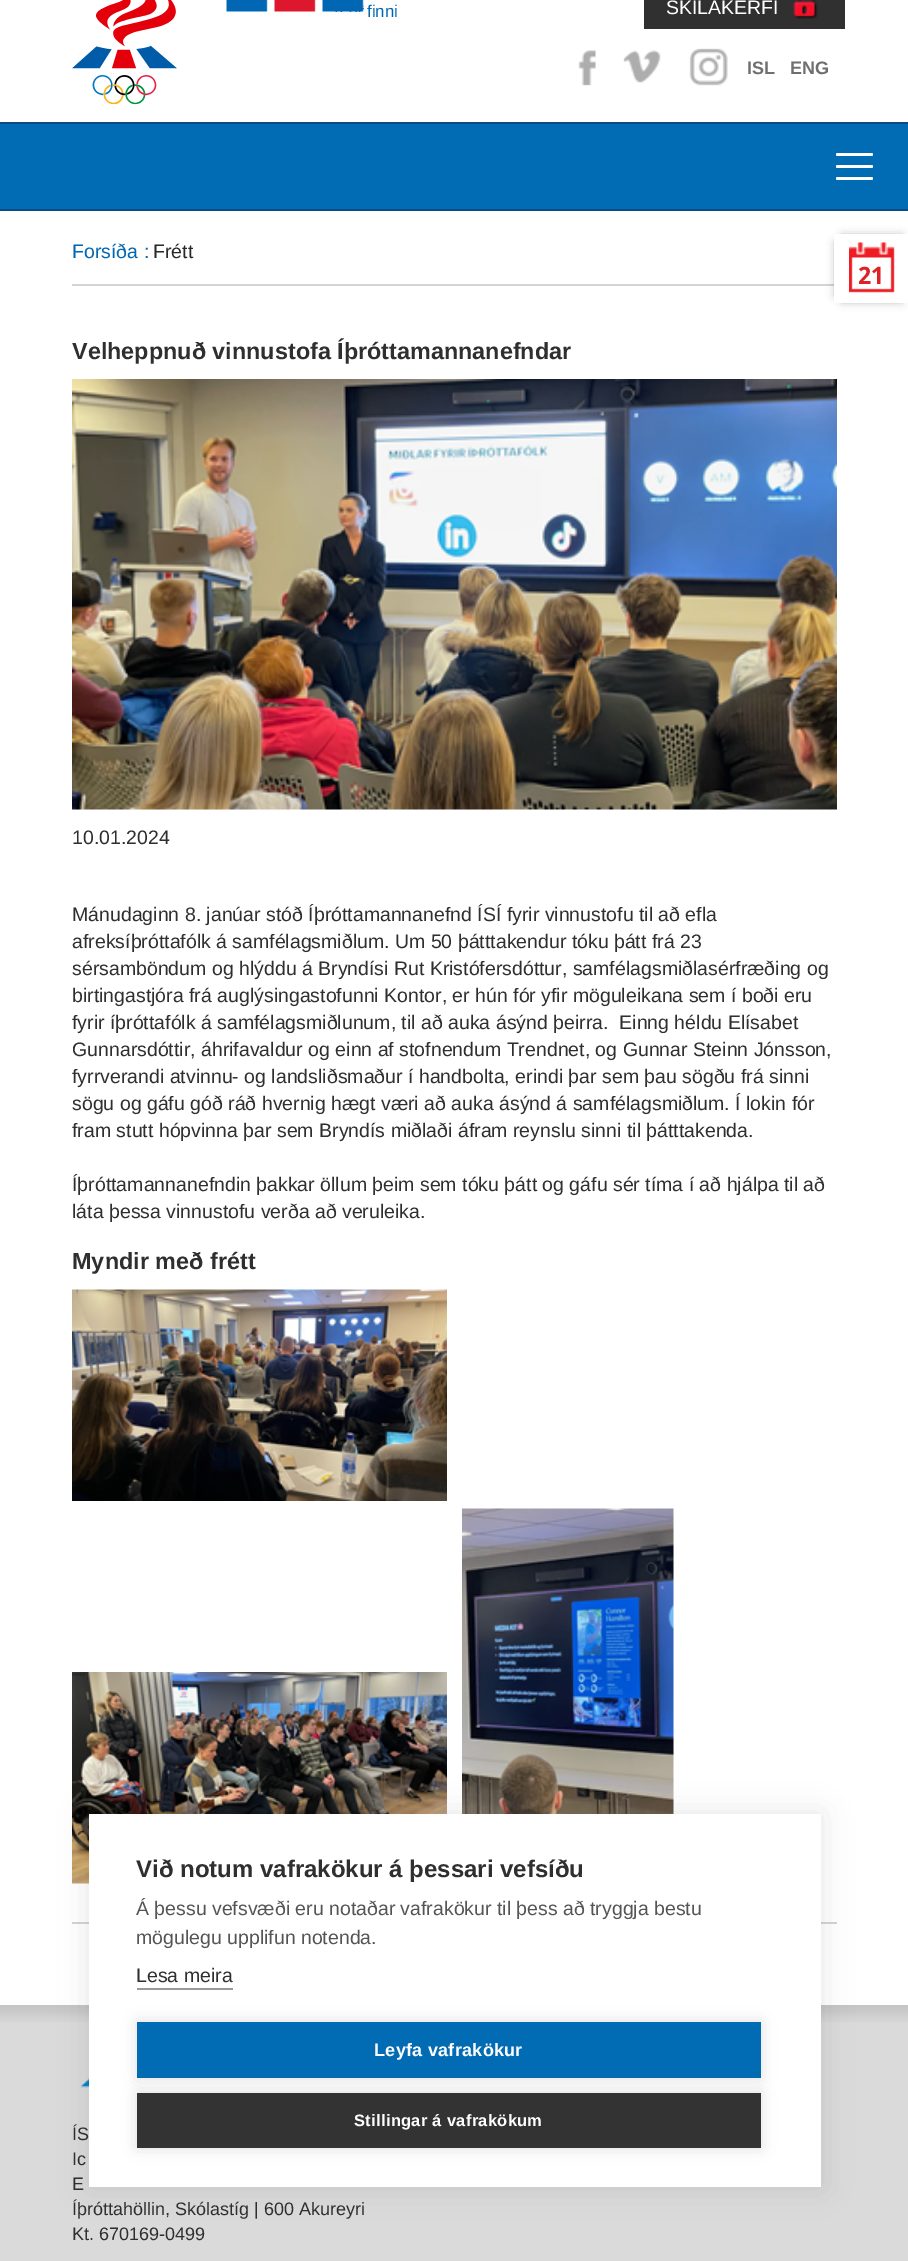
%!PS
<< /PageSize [908 2261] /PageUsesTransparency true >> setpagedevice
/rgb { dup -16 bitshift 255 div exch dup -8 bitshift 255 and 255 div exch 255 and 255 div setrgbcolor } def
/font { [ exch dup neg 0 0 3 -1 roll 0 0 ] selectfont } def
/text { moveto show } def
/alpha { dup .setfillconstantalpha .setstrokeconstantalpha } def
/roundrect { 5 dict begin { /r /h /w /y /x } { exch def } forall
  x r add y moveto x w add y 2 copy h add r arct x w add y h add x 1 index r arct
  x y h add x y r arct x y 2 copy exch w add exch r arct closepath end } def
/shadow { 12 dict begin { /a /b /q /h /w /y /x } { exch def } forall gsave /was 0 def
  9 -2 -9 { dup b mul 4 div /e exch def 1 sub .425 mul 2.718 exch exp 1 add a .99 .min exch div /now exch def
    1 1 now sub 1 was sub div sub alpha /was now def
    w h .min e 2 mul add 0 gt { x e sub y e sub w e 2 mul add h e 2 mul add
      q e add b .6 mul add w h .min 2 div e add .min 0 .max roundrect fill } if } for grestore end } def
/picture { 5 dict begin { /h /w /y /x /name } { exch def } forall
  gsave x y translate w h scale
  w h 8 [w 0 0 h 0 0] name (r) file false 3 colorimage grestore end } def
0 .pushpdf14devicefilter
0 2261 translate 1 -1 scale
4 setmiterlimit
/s1 { /LiberationSans-Regular 17 font 16#0166B3 rgb } def
/s2 { /LiberationSans-Regular 19.5 font 16#FFFFFF rgb } def
/s3 { /LiberationSans-Bold 18 font 16#6F6F6F rgb } def
/s4 { /LiberationSans-Regular 19.5 font 16#0166B3 rgb } def
/s5 { /LiberationSans-Regular 19.5 font 16#292929 rgb } def
/s6 { /LiberationSans-Bold 23.4 font 16#2F2F2F rgb } def
/s7 { /LiberationSans-Regular 19.5 font 16#2F2F2F rgb } def
/s8 { /DroidSans-Bold 24 font 16#DD2126 rgb } def
/s9 { /LiberationSans-Bold 24 font 16#2F2F2F rgb } def
/s10 { /LiberationSans-Regular 19.5 font 16#555555 rgb } def
/s11 { /LiberationSans-Regular 18 font 16#2F2F2F rgb } def
16#FFFFFF rgb
0 0 908 2261 rectfill
16#016BB3 rgb
0 124 908 85 rectfill
16#064E85 rgb
0 122 908 2 rectfill
0 209 908 2 rectfill
(pic1.raw) 72 0 105 105 picture
(pic2.raw) 226 0 138 12 picture
16#FFFFFF rgb
836 165 37 3 1.5 roundrect fill
836 153 37 3 1.5 roundrect fill
836 177 37 3 1.5 roundrect fill
s1
(finni) 367 17 text
16#303030 rgb
644 0 201 29 rectfill
(pic3.raw) 793 0 25 19 picture
s2
(SKILAKERFI) 666 14 text
(pic4.raw) 578 50 18 36 picture
(pic5.raw) 623 50 38 33 picture
(pic6.raw) 689 48 39 38 picture
s3
(ISL) 747 74 text
(ENG) 790 74 text
16#D4D4D4 rgb
72 284 765 2 rectfill
s4
(Forsíða :) 72 258 text
s5
(Frétt) 153 258 text
16#D4D4D4 rgb
72 1922 765 2 rectfill
s6
(Velheppnuð vinnustofa Íþróttamannanefndar) 72 359 text
(pic7.raw) 72 379 765 431 picture
s7
(10.01.2024) 72 844 text
(Mánudaginn 8. janúar stóð Íþróttamannanefnd ÍSÍ fyrir vinnustofu til að efla) 72 921 text
(afreksíþróttafólk á samfélagsmiðlum. Um 50 þátttakendur tóku þátt frá 23) 72 948 text
(sérsamböndum og hlýddu á Bryndísi Rut Kristófersdóttur, samfélagsmiðlasérfræðing og) 72 975 text
(birtingastjóra frá auglýsingastofunni Kontor, er hún fór yfir möguleikana sem í boði eru) 72 1002 text
(fyrir íþróttafólk á samfélagsmiðlunum, til að auka ásýnd þeirra.  Einng héldu Elísabet) 72 1029 text
(Gunnarsdóttir, áhrifavaldur og einn af stofnendum Trendnet, og Gunnar Steinn Jónsson,) 72 1056 text
(fyrrverandi atvinnu- og landsliðsmaður í handbolta, erindi þar sem þau sögðu frá sinni) 72 1083 text
(sögu og gáfu góð ráð hvernig hægt væri að auka ásýnd á samfélagsmiðlum. Í lokin fór) 72 1110 text
(fram stutt hópvinna þar sem Bryndís miðlaði áfram reynslu sinni til þátttakenda.) 72 1137 text
(Íþróttamannanefndin þakkar öllum þeim sem tóku þátt og gáfu sér tíma í að hjálpa til að) 72 1191 text
(láta þessa vinnustofu verða að veruleika.) 72 1218 text
s6
(Myndir með frétt) 72 1269 text
(pic8.raw) 72 1289 375 212 picture
(pic9.raw) 72 1672 375 212 picture
(pic10.raw) 462 1508 212 306 picture
16#000000 rgb
834 242 60 54 0 4 0.2 shadow
842 234 60 54 0 4 0.2 shadow
842 249 60 54 0 4 0.2 shadow
16#FFFFFF rgb
834 234 74 69 rectfill
(pic11.raw) 849 242 46 51 picture
s8
(21) 858 284 text
16#DADADA rgb
0 2022 908 239 rectfill
(pic12.raw) 0 2005 908 17 picture
(pic13.raw) 80 2077 9 11 picture
16#000000 rgb
89 1814 732 373 0 15 0.1 shadow
16#FFFFFF rgb
89 1814 732 373 rectfill
s9
(Við notum vafrakökur á þessari vefsíðu) 136 1877 text
s10
(Á þessu vefsvæði eru notaðar vafrakökur til þess að tryggja bestu) 136 1915 text
(mögulegu upplifun notenda.) 136 1944 text
s7
(Lesa meira) 136 1982 text
16#999999 rgb
137 1988 96 2 rectfill
16#000000 rgb
137 2022 624 56 0 7.5 0.12 shadow
16#016BB3 rgb
137 2022 624 56 rectfill
/LiberationSans-Bold 18 font
16#FFFFFF rgb
374 2056 moveto 0.3 0 (Leyfa vafrakökur) ashow
16#000000 rgb
137 2093 624 55 0 7.5 0.12 shadow
16#333333 rgb
137 2093 624 55 rectfill
/LiberationSans-Bold 16.5 font
16#FFFFFF rgb
354 2126 moveto 0.3 0 (Stillingar á vafrakökum) ashow
s11
(ÍS) 72 2140 text
(Ic) 72 2165 text
(E) 72 2190 text
(Íþróttahöllin, Skólastíg | 600 Akureyri) 72 2215 text
(Kt. 670169-0499) 72 2240 text
.poppdf14devicefilter showpage
